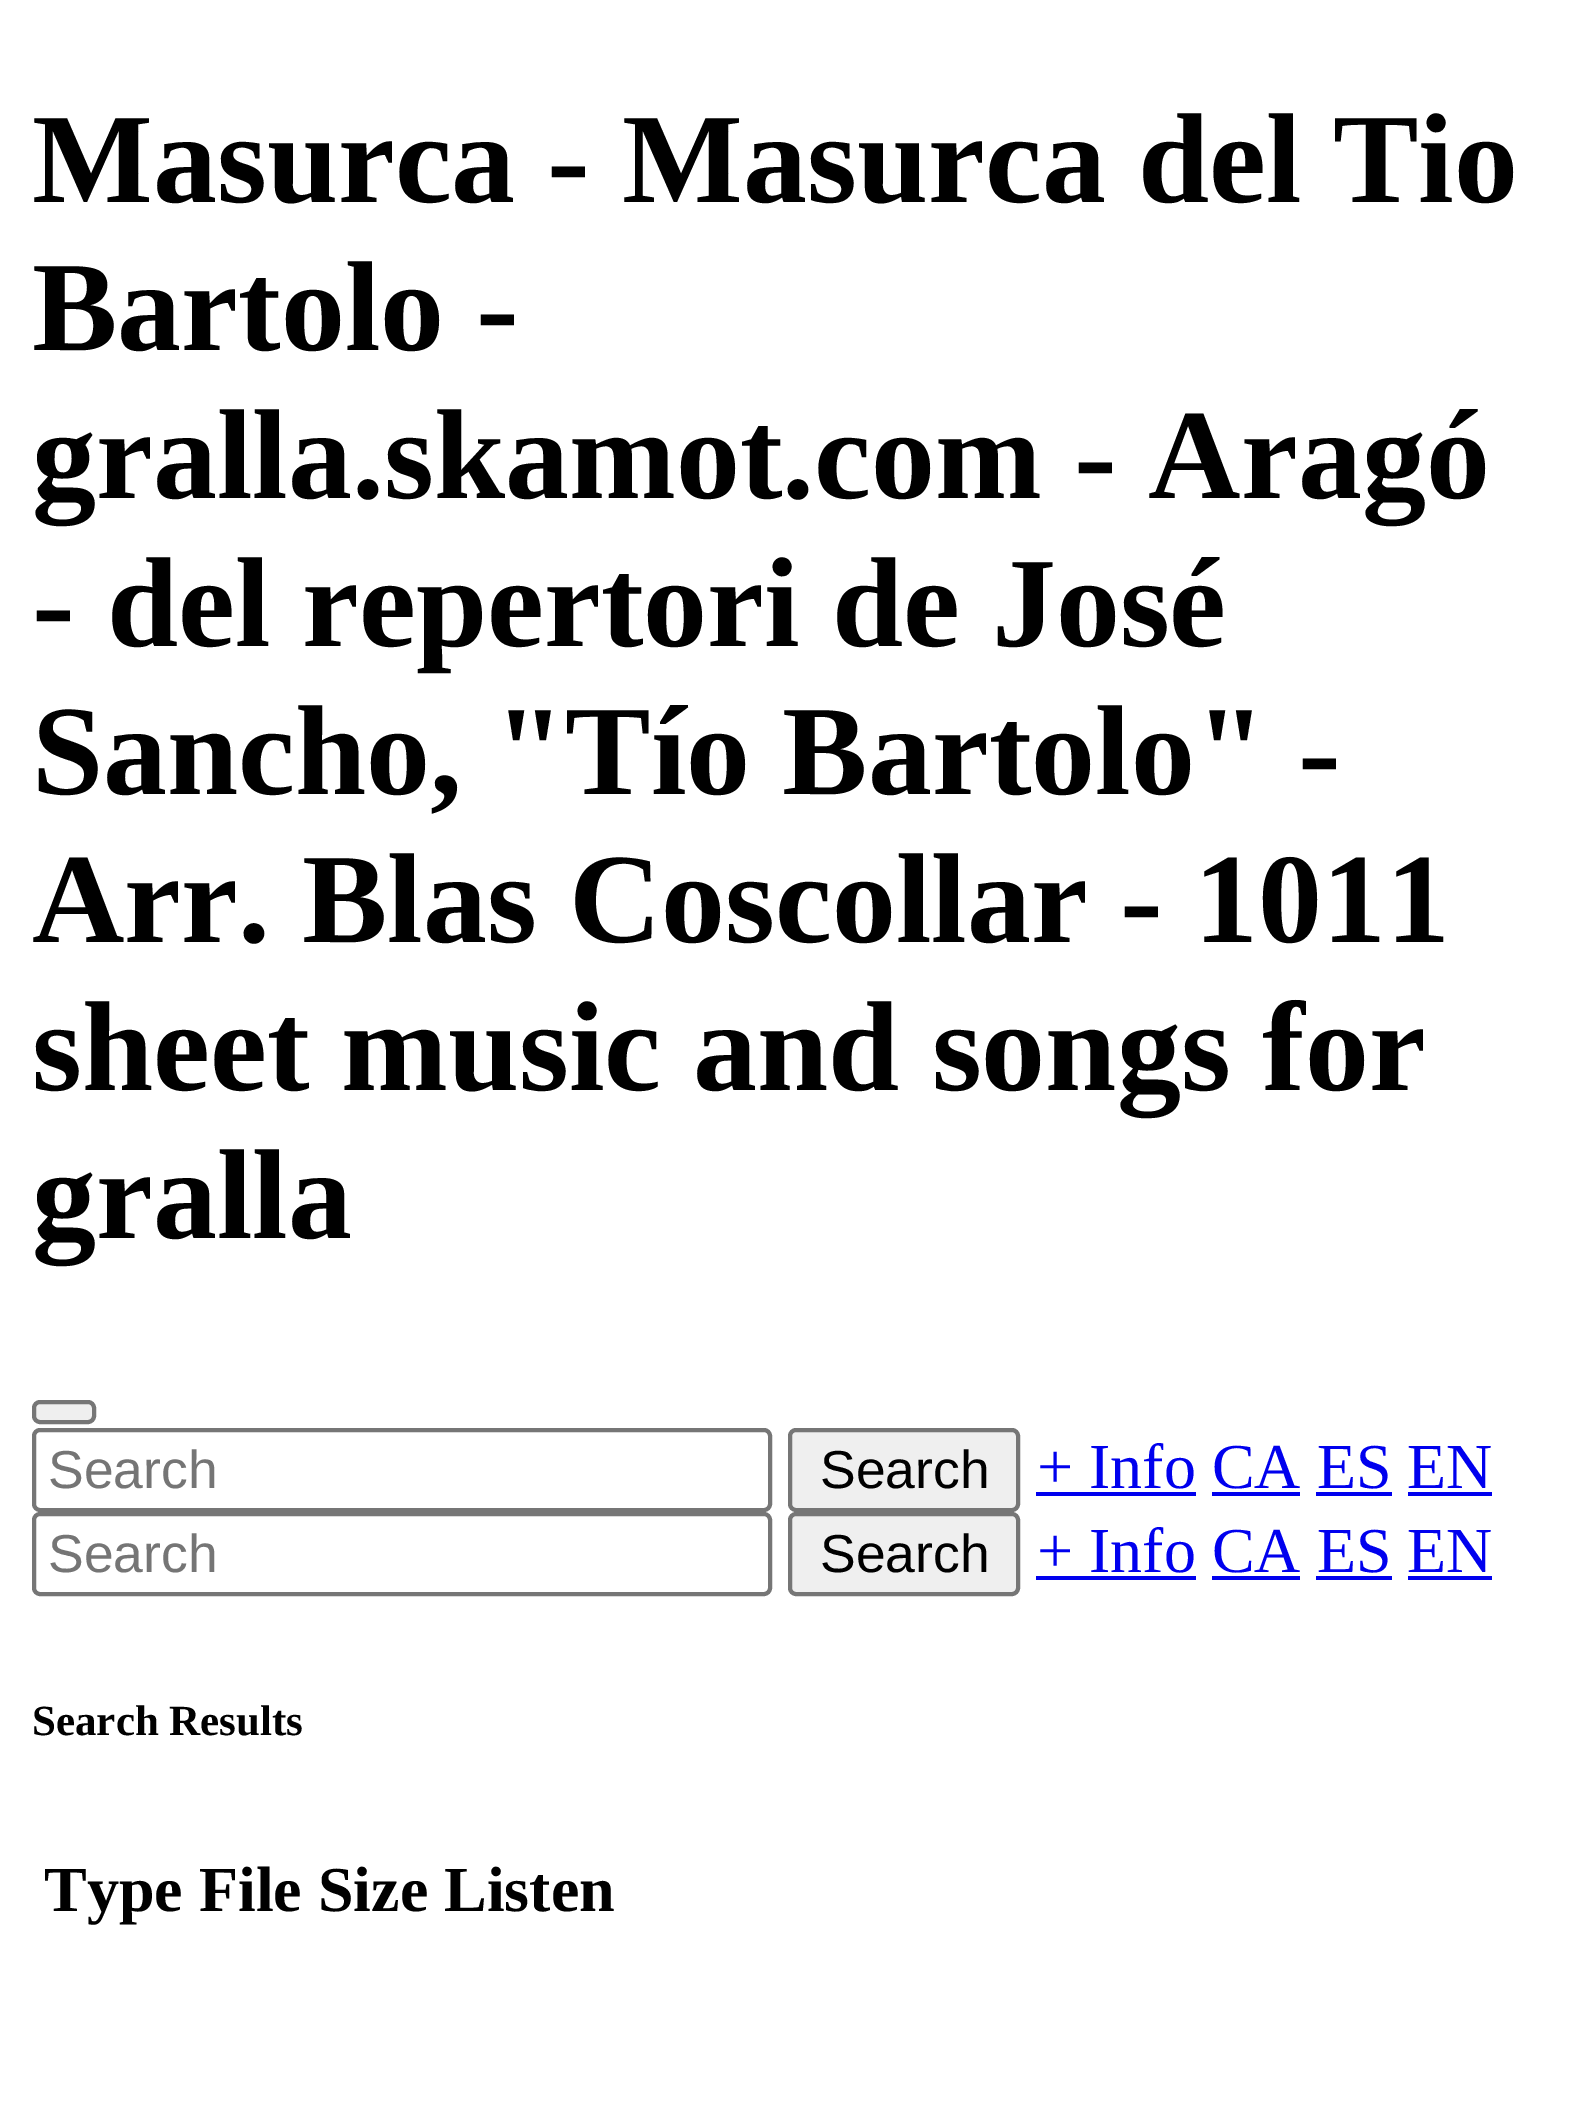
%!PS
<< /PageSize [1585 2123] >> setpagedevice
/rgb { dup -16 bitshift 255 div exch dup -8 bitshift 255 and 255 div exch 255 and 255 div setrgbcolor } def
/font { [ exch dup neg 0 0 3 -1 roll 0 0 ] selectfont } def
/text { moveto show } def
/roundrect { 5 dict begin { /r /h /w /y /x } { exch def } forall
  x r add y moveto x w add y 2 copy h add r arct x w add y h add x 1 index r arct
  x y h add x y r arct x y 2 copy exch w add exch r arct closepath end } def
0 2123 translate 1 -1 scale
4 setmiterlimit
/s1 { /LiberationSerif-Bold 128 font 16#000000 rgb } def
/s2 { /LiberationSans-Regular 53.5 font 16#757575 rgb } def
/s3 { /LiberationSans-Regular 53.5 font 16#000000 rgb } def
/s4 { /LiberationSerif-Regular 64 font 16#0000EE rgb } def
/s5 { /LiberationSerif-Bold 43 font 16#000000 rgb } def
/s6 { /LiberationSerif-Bold 64 font 16#000000 rgb } def
16#FFFFFF rgb
0 0 1585 2123 rectfill
s1
(Masurca - Masurca del Tio) 32 202 text
(Bartolo -) 32 350 text
(gralla.skamot.com - Aragó) 32 498 text
(- del repertori de José) 32 646 text
(Sancho, "Tío Bartolo" -) 32 794 text
(Arr. Blas Coscollar - 1011) 32 942 text
(sheet music and songs for) 32 1090 text
(gralla) 32 1238 text
16#EFEFEF rgb
34 1402 60 20 6 roundrect gsave fill grestore
16#767676 rgb
4 setlinewidth
stroke
34 1430 736 80 6 roundrect stroke
s2
(Search) 48 1488 text
16#EFEFEF rgb
790 1430 228 80 6 roundrect gsave fill grestore
16#767676 rgb
stroke
s3
(Search) 820 1488 text
s4
(+ Info CA ES EN) 1037 1488 text
1036 1492 160 4 rectfill
1212 1492 88 4 rectfill
1316 1492 76 4 rectfill
1408 1492 84 4 rectfill
16#767676 rgb
34 1514 736 80 6 roundrect stroke
s2
(Search) 48 1572 text
16#EFEFEF rgb
790 1514 228 80 6 roundrect gsave fill grestore
16#767676 rgb
stroke
s3
(Search) 820 1572 text
s4
(+ Info CA ES EN) 1037 1572 text
1036 1576 160 4 rectfill
1212 1576 88 4 rectfill
1316 1576 76 4 rectfill
1408 1576 84 4 rectfill
s5
(Search Results) 32 1735 text
s6
(Type File Size Listen) 44 1911 text
showpage
